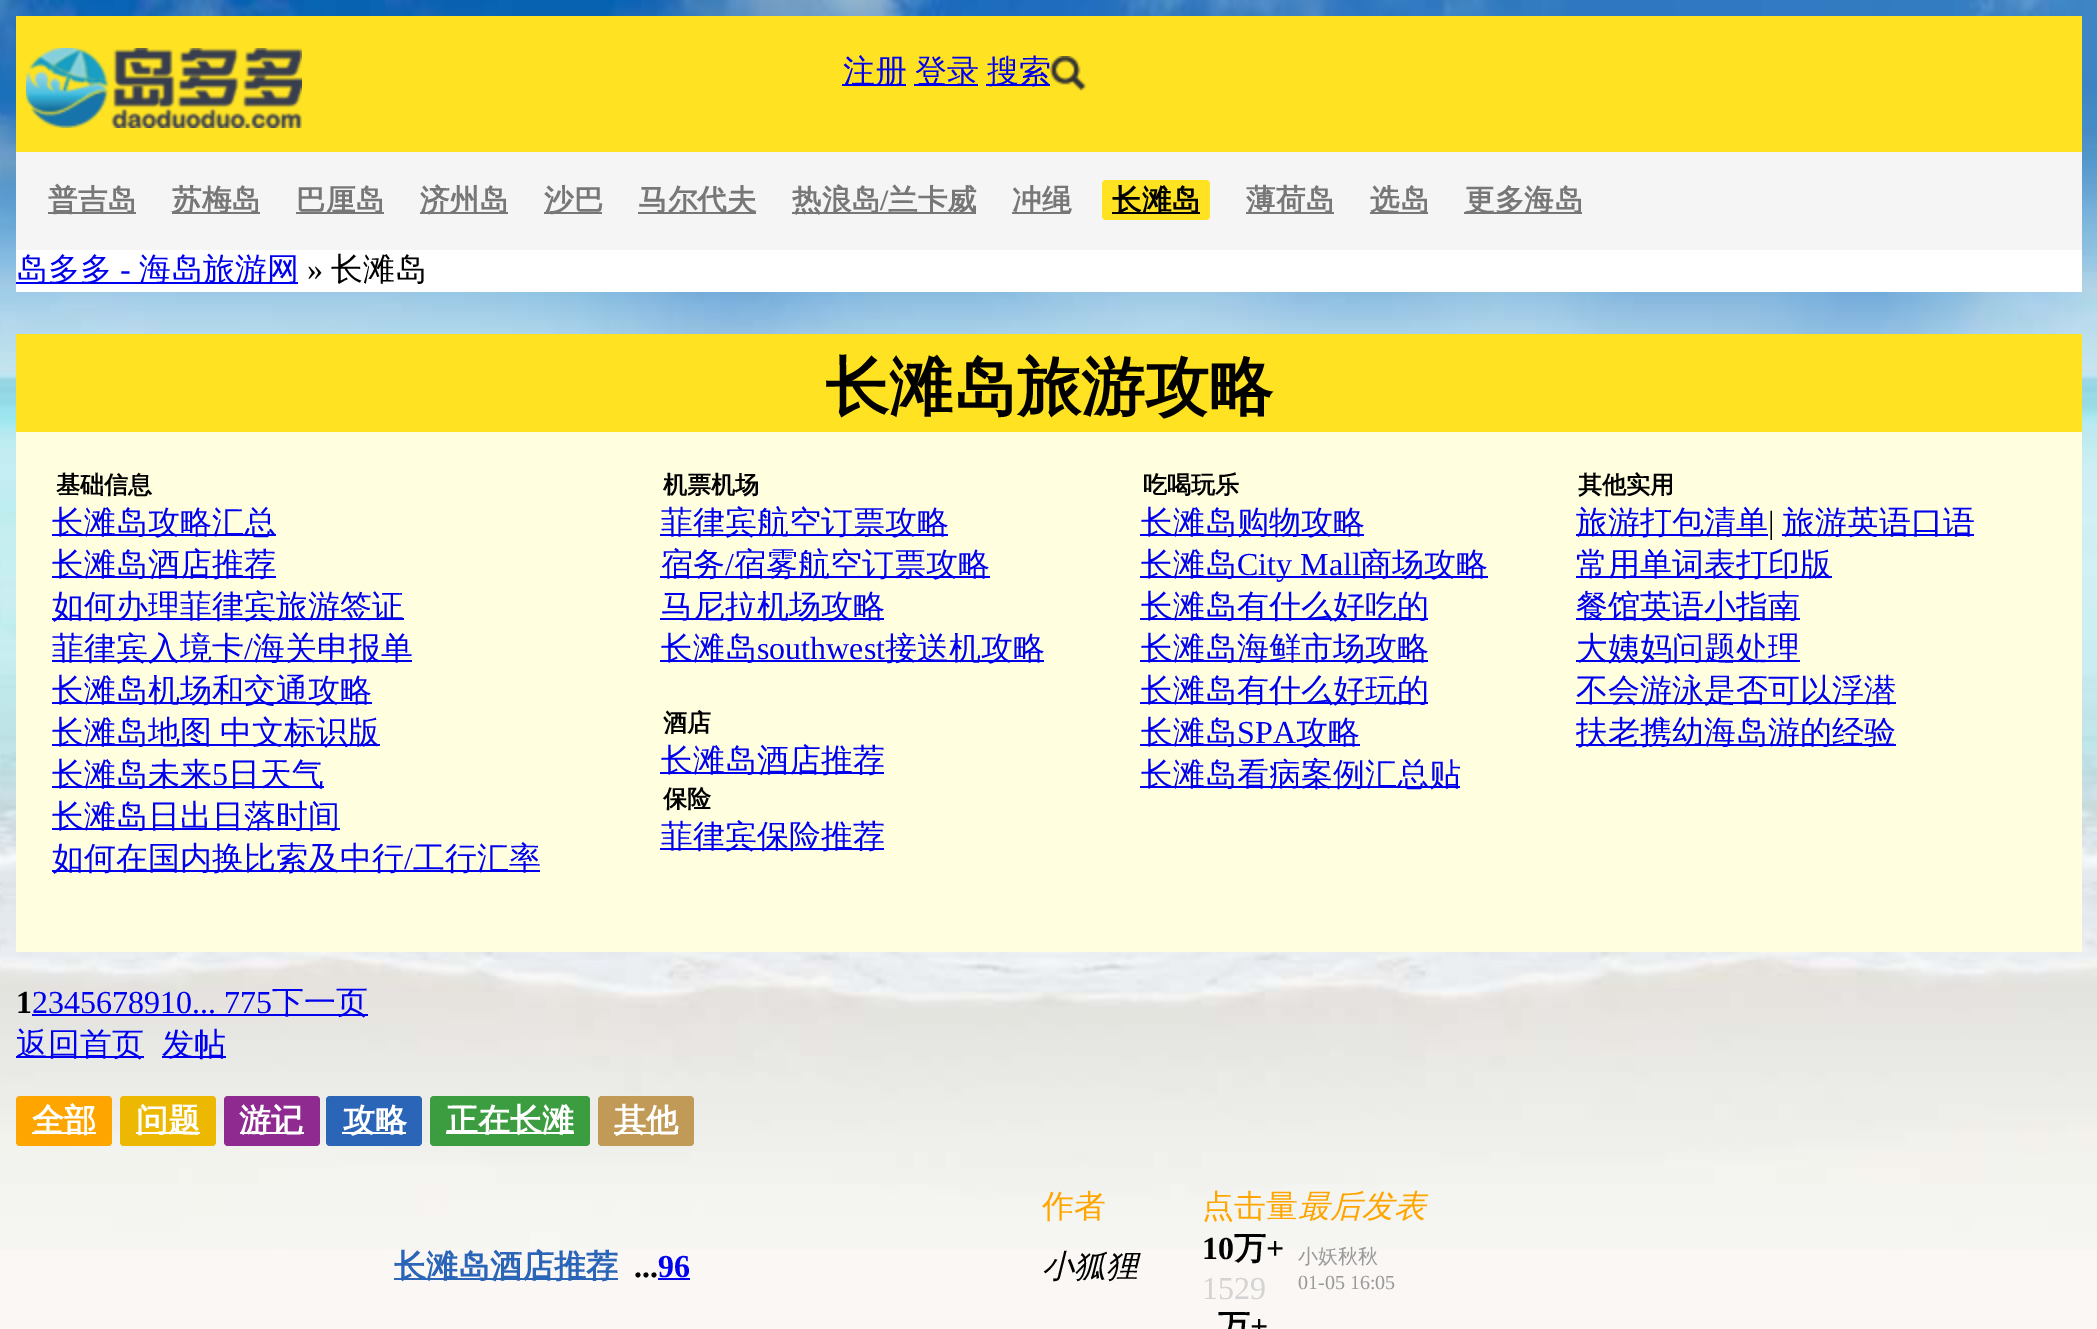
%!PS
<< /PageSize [2097 1329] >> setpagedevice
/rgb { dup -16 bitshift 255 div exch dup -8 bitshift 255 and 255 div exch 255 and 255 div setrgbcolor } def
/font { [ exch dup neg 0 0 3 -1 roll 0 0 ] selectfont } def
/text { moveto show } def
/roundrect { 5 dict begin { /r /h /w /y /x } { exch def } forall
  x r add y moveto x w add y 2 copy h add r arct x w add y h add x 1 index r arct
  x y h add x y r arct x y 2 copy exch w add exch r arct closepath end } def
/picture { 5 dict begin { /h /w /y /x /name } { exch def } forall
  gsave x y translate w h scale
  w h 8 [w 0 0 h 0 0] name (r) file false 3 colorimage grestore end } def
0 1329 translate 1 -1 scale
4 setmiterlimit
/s1 { /WenQuanYiZenHei-Medium 32 font 16#0000EE rgb } def
/s2 { /WenQuanYiZenHei-Bold 29.5 font 16#777777 rgb } def
/s3 { /LiberationSerif-Bold 29.5 font 16#777777 rgb } def
/s4 { /WenQuanYiZenHei-Bold 29.5 font 16#000000 rgb } def
/s5 { /LiberationSerif-Regular 32 font 16#0000EE rgb } def
/s6 { /LiberationSerif-Regular 32 font 16#000000 rgb } def
/s7 { /WenQuanYiZenHei-Medium 32 font 16#000000 rgb } def
/s8 { /WenQuanYiZenHei-Bold 64 font 16#000000 rgb } def
/s9 { /WenQuanYiZenHei-Bold 24 font 16#000000 rgb } def
/s10 { /LiberationSerif-Bold 32 font 16#000000 rgb } def
/s11 { /WenQuanYiZenHei-Bold 32 font 16#FFFFFF rgb } def
/s12 { /WenQuanYiZenHei-Medium 32 font 16#FFA500 rgb } def
/s13 { /WenQuanYiZenHei-MediumItalic 32 font 16#FFA500 rgb } def
/s14 { /WenQuanYiZenHei-Bold 32 font 16#2B65B7 rgb } def
/s15 { /LiberationSerif-Bold 32 font 16#0000EE rgb } def
/s16 { /WenQuanYiZenHei-MediumItalic 32 font 16#000000 rgb } def
/s17 { /WenQuanYiZenHei-Bold 32 font 16#000000 rgb } def
/s18 { /LiberationSerif-Regular 32 font 16#D3D3D3 rgb } def
/s19 { /WenQuanYiZenHei-Medium 20 font 16#999999 rgb } def
/s20 { /LiberationSerif-Regular 20 font 16#999999 rgb } def
16#FBF7F4 rgb
0 0 2097 1329 rectfill
(pic1.raw) 0 0 2097 1250 picture
16#FFE222 rgb
16 16 2066 136 rectfill
(pic2.raw) 26 48 276 80 picture
16#0000EE rgb
842 84 64 2 rectfill
s1
(注册) 843 82 text
914 84 64 2 rectfill
(登录) 915 82 text
986 84 64 2 rectfill
(搜索) 987 82 text
(pic3.raw) 1050 56 36 35 picture
16#F5F5F5 rgb
16 152 2066 98 rectfill
16#777777 rgb
48 212 88 2 rectfill
s2
(普吉岛) 48 210 text
172 212 88 2 rectfill
(苏梅岛) 172 210 text
296 212 88 2 rectfill
(巴厘岛) 296 210 text
420 212 88 2 rectfill
(济州岛) 420 210 text
544 212 58 2 rectfill
(沙巴) 544 210 text
638 212 118 2 rectfill
(马尔代夫) 638 210 text
792 212 184 2 rectfill
(热浪岛) 792 210 text
s3
(/) 880 210 text
s2
(兰卡威) 888 210 text
1012 212 58 2 rectfill
(冲绳) 1012 210 text
16#FFE222 rgb
1102 180 108 40 4 roundrect fill
16#000000 rgb
1112 212 88 2 rectfill
(长滩岛) 1112 210 text
16#777777 rgb
1246 212 88 2 rectfill
(薄荷岛) 1246 210 text
1370 212 58 2 rectfill
(选岛) 1370 210 text
1464 212 118 2 rectfill
(更多海岛) 1465 210 text
16#FFFFFF rgb
16 250 2066 42 rectfill
16#0000EE rgb
16 282 282 2 rectfill
s1
(岛多多) 16 280 text
s5
(-) 120 280 text
s1
(海岛旅游网) 139 280 text
s6
(») 307 280 text
s7
(长滩岛) 331 280 text
16#FFE222 rgb
16 334 2066 98 rectfill
s8
(长滩岛旅游攻略) 825 409 text
16#FFFFE0 rgb
16 432 2066 520 rectfill
s9
(基础信息) 56 493 text
16#0000EE rgb
52 534 224 2 rectfill
s1
(长滩岛攻略汇总) 52 533 text
52 576 224 2 rectfill
(长滩岛酒店推荐) 52 575 text
52 618 352 2 rectfill
(如何办理菲律宾旅游签证) 52 617 text
52 660 360 2 rectfill
(菲律宾入境卡) 52 659 text
s5
(/) 244 659 text
s1
(海关申报单) 253 659 text
52 702 320 2 rectfill
(长滩岛机场和交通攻略) 52 701 text
52 744 328 2 rectfill
52 743 moveto -2 0 32 (长滩岛地图 中文标识版) widthshow
52 786 272 2 rectfill
(长滩岛未来) 52 785 text
s5
(5) 212 785 text
s1
(日天气) 228 785 text
52 828 288 2 rectfill
(长滩岛日出日落时间) 52 827 text
52 870 488 2 rectfill
(如何在国内换比索及中行) 52 869 text
s5
(/) 404 869 text
s1
(工行汇率) 413 869 text
s9
(机票机场) 663 493 text
16#0000EE rgb
660 534 288 2 rectfill
s1
(菲律宾航空订票攻略) 661 533 text
660 576 330 2 rectfill
(宿务) 661 575 text
s5
(/) 725 575 text
s1
(宿雾航空订票攻略) 734 575 text
660 618 224 2 rectfill
(马尼拉机场攻略) 661 617 text
660 660 384 2 rectfill
(长滩岛) 661 659 text
s5
(southwest) 757 659 text
s1
(接送机攻略) 885 659 text
s9
(酒店) 663 731 text
16#0000EE rgb
660 772 224 2 rectfill
s1
(长滩岛酒店推荐) 661 771 text
s9
(保险) 663 807 text
16#0000EE rgb
660 848 224 2 rectfill
s1
(菲律宾保险推荐) 661 847 text
s9
(吃喝玩乐) 1143 493 text
16#0000EE rgb
1140 534 224 2 rectfill
s1
(长滩岛购物攻略) 1141 533 text
1140 576 348 2 rectfill
(长滩岛) 1141 575 text
s5
(City Mall) 1237 575 text
s1
(商场攻略) 1360 575 text
1140 618 288 2 rectfill
(长滩岛有什么好吃的) 1141 617 text
1140 660 288 2 rectfill
(长滩岛海鲜市场攻略) 1141 659 text
1140 702 288 2 rectfill
(长滩岛有什么好玩的) 1141 701 text
1140 744 220 2 rectfill
(长滩岛) 1141 743 text
s5
(SPA) 1237 743 text
s1
(攻略) 1296 743 text
1140 786 320 2 rectfill
(长滩岛看病案例汇总贴) 1141 785 text
s9
(其他实用) 1578 493 text
16#0000EE rgb
1576 534 192 2 rectfill
s1
(旅游打包清单) 1576 533 text
s6
(|) 1768 533 text
16#0000EE rgb
1782 534 192 2 rectfill
s1
(旅游英语口语) 1783 533 text
1576 576 256 2 rectfill
(常用单词表打印版) 1576 575 text
1576 618 224 2 rectfill
(餐馆英语小指南) 1576 617 text
1576 660 224 2 rectfill
(大姨妈问题处理) 1576 659 text
1576 702 320 2 rectfill
(不会游泳是否可以浮潜) 1576 701 text
1576 744 320 2 rectfill
(扶老携幼海岛游的经验) 1576 743 text
s10
(1) 16 1013 text
s5
(2345678910... 775) 32 1013 text
32 1014 336 2 rectfill
s1
(下一页) 272 1013 text
16 1056 128 2 rectfill
(返回首页) 16 1055 text
162 1056 64 2 rectfill
(发帖) 162 1055 text
16#FFA500 rgb
16 1096 96 50 4 roundrect fill
16#FFFFFF rgb
32 1132 64 2 rectfill
s11
(全部) 32 1131 text
16#EDB802 rgb
120 1096 96 50 4 roundrect fill
16#FFFFFF rgb
136 1132 64 2 rectfill
(问题) 136 1131 text
16#8F2A90 rgb
224 1096 96 50 4 roundrect fill
16#FFFFFF rgb
240 1132 64 2 rectfill
(游记) 239 1131 text
16#2B65B7 rgb
326 1096 96 50 4 roundrect fill
16#FFFFFF rgb
342 1132 64 2 rectfill
(攻略) 343 1131 text
16#3C9D40 rgb
430 1096 160 50 4 roundrect fill
16#FFFFFF rgb
446 1132 128 2 rectfill
(正在长滩) 446 1131 text
16#C29A58 rgb
598 1096 96 50 4 roundrect fill
16#FFFFFF rgb
614 1132 64 2 rectfill
(其他) 614 1131 text
s12
(作者) 1042 1217 text
(点击量) 1202 1217 text
s13
(最后发表) 1298 1217 text
16#2B65B7 rgb
394 1278 224 2 rectfill
s14
(长滩岛酒店推荐) 394 1277 text
s10
(...) 634 1277 text
16#0000EE rgb
658 1278 32 2 rectfill
(96) 658 1277 text
s16
(小狐狸) 1042 1277 text
s10
(10) 1202 1259 text
s17
(万) 1234 1259 text
s10
(+) 1266 1259 text
s18
(1529) 1202 1299 text
s19
(小妖秋秋) 1298 1263 text
s20
(01-05 16:05) 1298 1289 text
s17
(万) 1218 1337 text
s10
(+) 1250 1337 text
showpage
